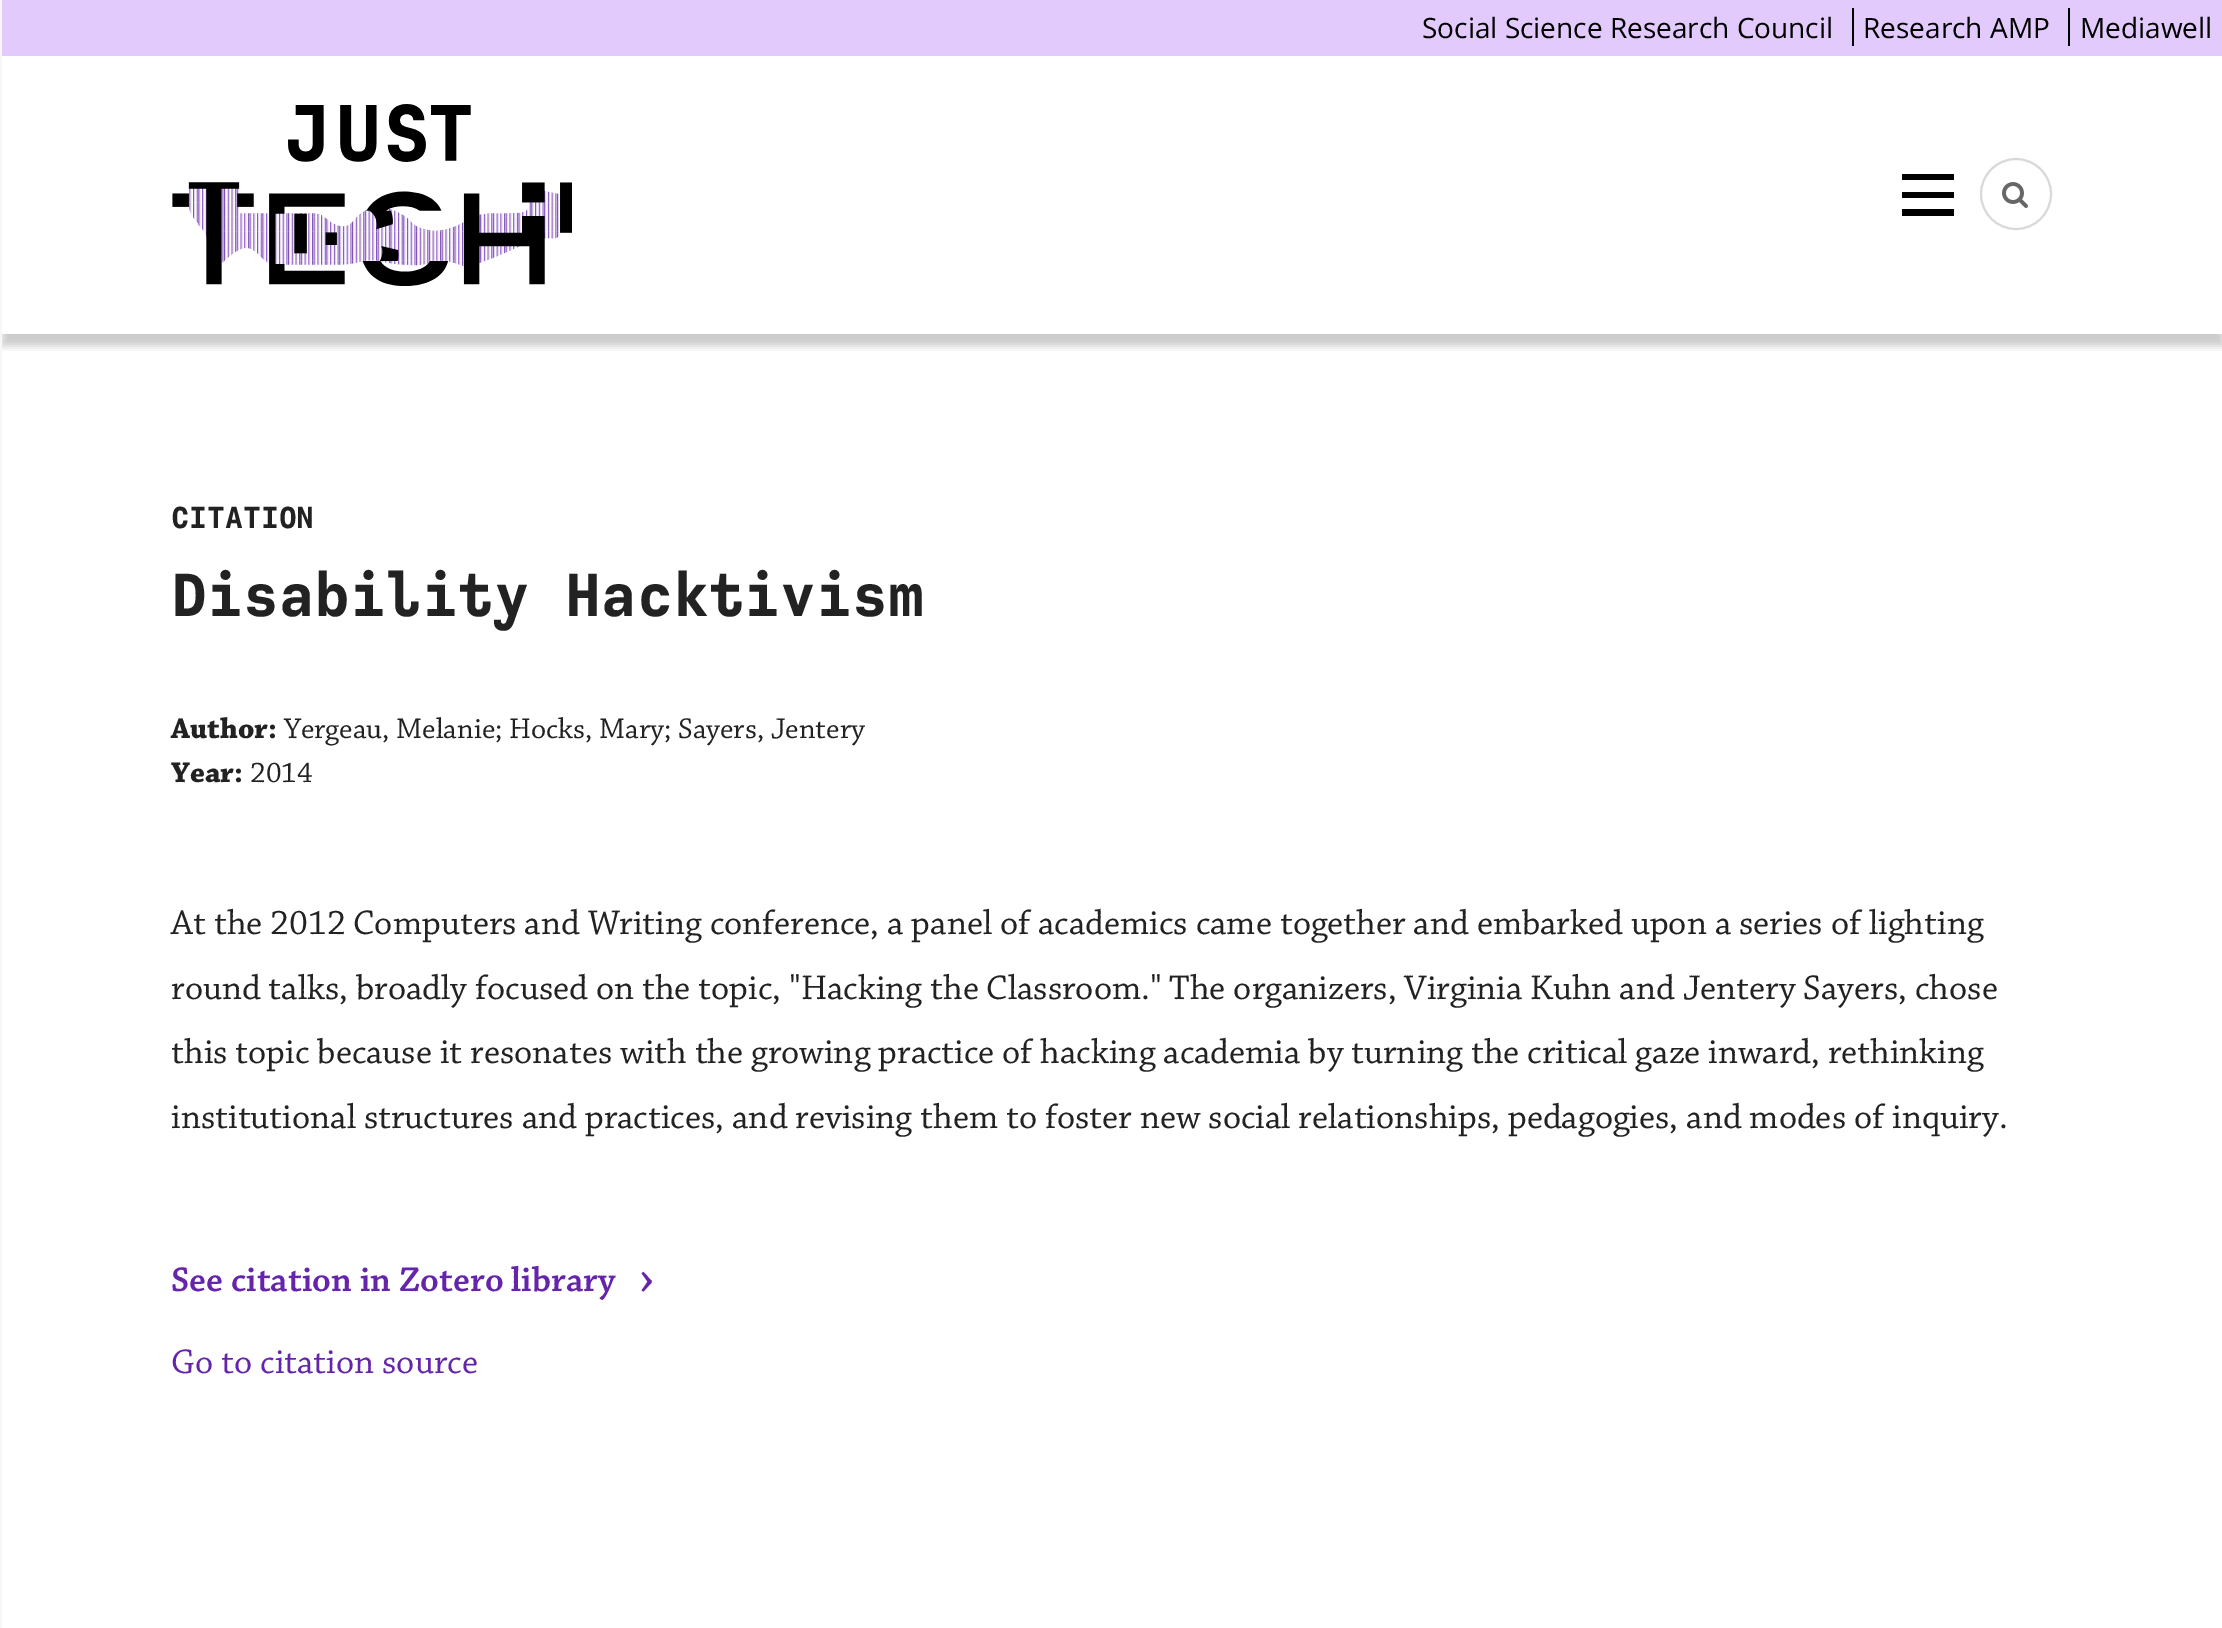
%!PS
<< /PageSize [2222 1628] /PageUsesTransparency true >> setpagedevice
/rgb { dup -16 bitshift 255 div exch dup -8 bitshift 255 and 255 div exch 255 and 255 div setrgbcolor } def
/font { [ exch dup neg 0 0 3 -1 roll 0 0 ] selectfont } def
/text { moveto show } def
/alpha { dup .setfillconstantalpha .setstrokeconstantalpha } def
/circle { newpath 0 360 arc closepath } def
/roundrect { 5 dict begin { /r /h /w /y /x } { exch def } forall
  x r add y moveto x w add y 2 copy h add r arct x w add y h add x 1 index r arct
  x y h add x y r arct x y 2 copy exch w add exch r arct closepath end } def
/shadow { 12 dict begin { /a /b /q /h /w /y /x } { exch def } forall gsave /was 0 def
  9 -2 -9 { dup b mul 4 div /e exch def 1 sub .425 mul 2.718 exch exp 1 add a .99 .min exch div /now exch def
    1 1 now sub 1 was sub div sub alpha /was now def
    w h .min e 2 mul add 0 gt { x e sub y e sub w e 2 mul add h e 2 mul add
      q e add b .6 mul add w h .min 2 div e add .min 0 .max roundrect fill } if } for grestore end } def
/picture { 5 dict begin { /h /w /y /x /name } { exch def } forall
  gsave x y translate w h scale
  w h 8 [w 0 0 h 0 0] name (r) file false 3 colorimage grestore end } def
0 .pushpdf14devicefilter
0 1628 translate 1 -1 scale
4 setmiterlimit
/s1 { /OpenSans-Regular 28 font 16#000000 rgb } def
/s2 { /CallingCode-Bold 32 font 16#222222 rgb } def
/s3 { /CallingCode-Bold 64 font 16#222222 rgb } def
/s4 { /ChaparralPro-Bold 30 font 16#222222 rgb } def
/s5 { /ChaparralPro-Regular 30 font 16#222222 rgb } def
/s6 { /ChaparralPro-Regular 36 font 16#222222 rgb } def
/s7 { /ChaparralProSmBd-SemiBold 36 font 16#6525AB rgb } def
/s8 { /ChaparralPro-Regular 60 font 16#6525AB rgb } def
/s9 { /ChaparralPro-Regular 36 font 16#6525AB rgb } def
16#FFFFFF rgb
0 0 2222 1628 rectfill
16#E2CAFC rgb
2 0 2220 56 rectfill
gsave
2 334 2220 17 rectclip
16#000000 rgb
2 68 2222 278 0 4 0.2 shadow
grestore
16#F7F7F7 rgb
0 0 2 1628 rectfill
s1
(Social Science Research Council) 1422 38 text
(Research AMP) 1863 38 text
1852 8 2 38 rectfill
(Mediawell) 2080 38 text
2068 8 2 38 rectfill
(pic1.raw) 172 104 400 182 picture
1902 174 52 6 rectfill
1902 209 52 7 rectfill
1902 192 52 6 rectfill
16#D9D9D9 rgb
2 setlinewidth
2016 194 35 circle stroke
(pic2.raw) 2002 182 26 26 picture
s2
(CITATION) 171 528 text
s3
(Disability Hacktivism) 171 616 text
s4
(Author:) 171 738 text
s5
(Yergeau, Melanie; Hocks, Mary; Sayers, Jentery) 284 738 text
s4
(Year:) 171 782 text
s5
(2014) 250 782 text
s6
(At the 2012 Computers and Writing conference, a panel of academics came together and embarked upon a series of lighting) 171 934 text
(round talks, broadly focused on the topic, "Hacking the Classroom." The organizers, Virginia Kuhn and Jentery Sayers, chose) 171 999 text
(this topic because it resonates with the growing practice of hacking academia by turning the critical gaze inward, rethinking) 171 1063 text
(institutional structures and practices, and revising them to foster new social relationships, pedagogies, and modes of inquiry.) 171 1128 text
s7
(See citation in Zotero library) 171 1291 text
s8
(›) 639 1295 text
s9
(Go to citation source) 171 1373 text
.poppdf14devicefilter showpage
